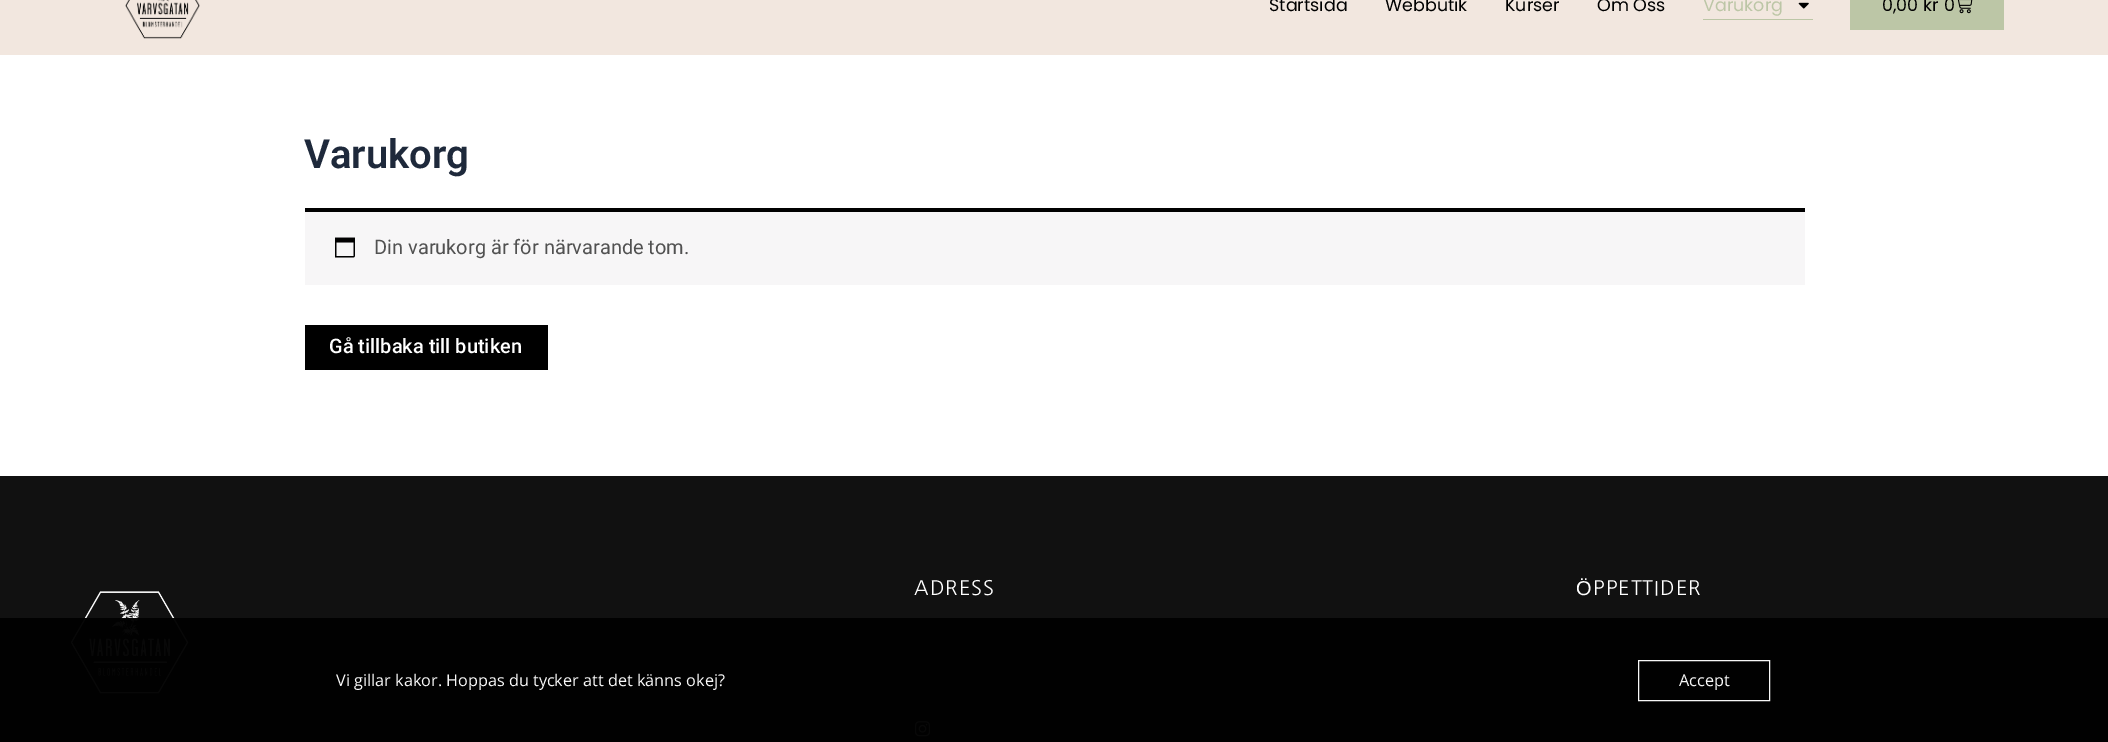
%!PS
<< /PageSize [2108 742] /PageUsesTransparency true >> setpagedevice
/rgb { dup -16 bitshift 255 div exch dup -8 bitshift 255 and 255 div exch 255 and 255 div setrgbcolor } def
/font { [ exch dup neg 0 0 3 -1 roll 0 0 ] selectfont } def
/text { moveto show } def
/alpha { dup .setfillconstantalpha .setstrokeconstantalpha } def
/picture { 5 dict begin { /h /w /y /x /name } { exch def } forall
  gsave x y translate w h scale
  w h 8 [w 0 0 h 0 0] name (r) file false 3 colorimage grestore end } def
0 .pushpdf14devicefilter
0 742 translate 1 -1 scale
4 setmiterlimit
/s1 { /Poppins-Regular 17.5 font 16#000000 rgb } def
/s2 { /Poppins-Regular 17.5 font 16#BCC6A6 rgb } def
/s3 { /Roboto-SemiBold 40 font 16#1E293B rgb } def
/s4 { /Roboto-Regular 20 font 16#515151 rgb } def
/s5 { /Roboto-Medium 20 font 16#FFFFFF rgb } def
/s6 { /OpenSans-Regular 16.25 font 16#F8F8F8 rgb } def
16#FFFFFF rgb
0 0 2108 742 rectfill
16#F2E7DF rgb
0 0 2108 55 rectfill
(pic1.raw) 125 0 75 39 picture
s1
(Startsida) 1269 11 text
(Webbutik) 1385 11 text
(Kurser) 1505 11 text
(Om Oss) 1597 11 text
s2
(Varukorg) 1703 11 text
(pic2.raw) 1798 2 11 7 picture
1703 19 110 1 rectfill
1850 0 154 30 rectfill
s1
(0,00 kr) 1882 11 text
(0) 1944 11 text
(pic3.raw) 1957 0 16 14 picture
s3
(Varukorg) 304 168 text
16#F7F6F7 rgb
305 212 1500 73 rectfill
16#010101 rgb
305 208 1500 4 rectfill
(pic4.raw) 335 237 20 21 picture
s4
(Din varukorg är för närvarande tom.) 374 254 text
16#000000 rgb
305 325 243 45 rectfill
s5
(Gå tillbaka till butiken) 329 353 text
16#111111 rgb
0 476 2108 266 rectfill
/NanumGothic-Regular 20 font
16#FFFFFF rgb
914 595 moveto 1 0 (ADRESS) ashow
(pic5.raw) 914 721 17 16 picture
/LiberationSans-Regular 20 font
1576 595 moveto 1 0 (Ö) ashow
/NanumGothic-Regular 20 font
1593 595 moveto 1 0 (PPETTIDER) ashow
(pic6.raw) 70 591 119 103 picture
0.97 alpha
16#000000 rgb
0 618 2108 124 rectfill
1 alpha
s6
(Vi gillar kakor. Hoppas du tycker att det känns okej?) 336 686 text
0.97 alpha
16#FFFFFF rgb
1638.5 660.5 131 40 rectstroke
1 alpha
s6
(Accept) 1679 686 text
.poppdf14devicefilter showpage
